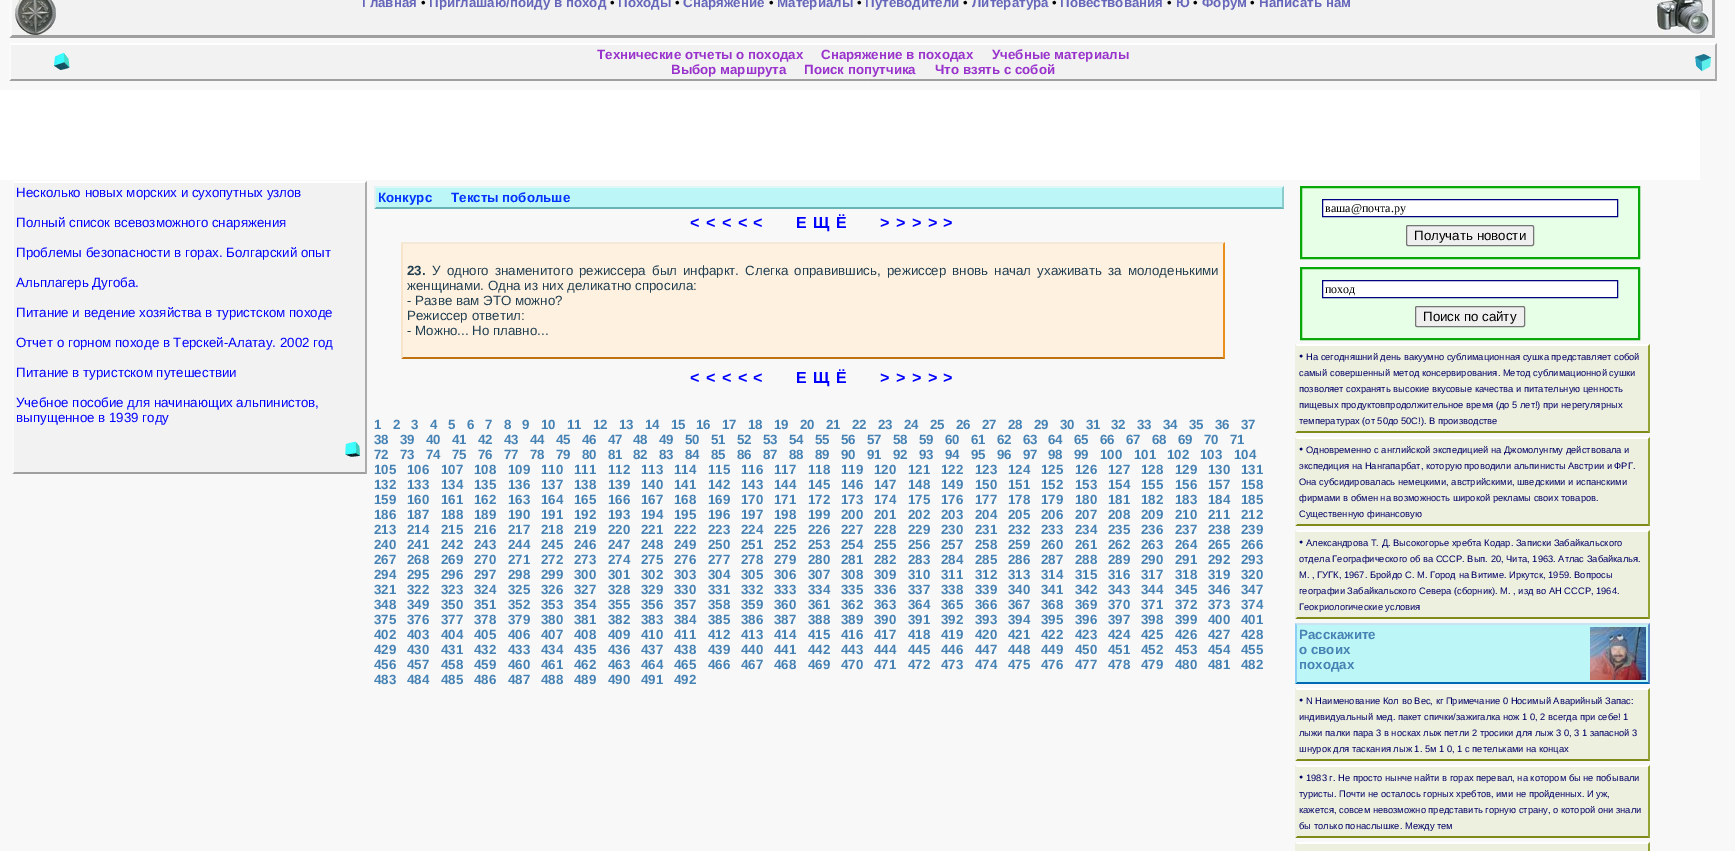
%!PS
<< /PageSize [1735 851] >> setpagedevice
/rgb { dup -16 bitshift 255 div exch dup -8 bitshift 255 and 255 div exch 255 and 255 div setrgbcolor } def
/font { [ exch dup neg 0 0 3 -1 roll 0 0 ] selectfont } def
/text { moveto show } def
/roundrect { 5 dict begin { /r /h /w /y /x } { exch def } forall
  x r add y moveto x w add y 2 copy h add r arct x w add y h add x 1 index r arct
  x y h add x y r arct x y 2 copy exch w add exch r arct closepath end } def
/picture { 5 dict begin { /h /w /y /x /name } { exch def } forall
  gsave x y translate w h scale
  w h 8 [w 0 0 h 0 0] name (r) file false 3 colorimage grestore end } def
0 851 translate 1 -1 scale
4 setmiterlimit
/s1 { /LiberationSans-Bold 13.33 font 16#6666BB rgb } def
/s2 { /LiberationSans-Regular 13.33 font 16#000000 rgb } def
/s3 { /LiberationSans-Bold 13.33 font 16#9933CC rgb } def
/s4 { /LiberationSans-Regular 13.33 font 16#0000FF rgb } def
/s5 { /LiberationSans-Bold 13.33 font 16#0033FF rgb } def
/s6 { /LiberationSans-Bold 13.33 font 16#203E50 rgb } def
/s7 { /LiberationSans-Regular 13.33 font 16#203E50 rgb } def
/s8 { /LiberationSans-Bold 13.33 font 16#4682B4 rgb } def
/s9 { /LiberationSerif-Regular 12 font 16#000000 rgb } def
/s10 { /LiberationSerif-Regular 12 font 16#000066 rgb } def
/s11 { /LiberationSans-Regular 9.35 font 16#000066 rgb } def
16#F8F8F8 rgb
0 0 1735 851 rectfill
16#F2F2F2 rgb
9 0 1706 38 rectfill
16#ACACAC rgb
1715 -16 moveto 1715 38 lineto 1712 35 lineto 1712 -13 lineto closepath fill
16#9F9F9F rgb
1715 38 moveto 9 38 lineto 12 35 lineto 1712 35 lineto closepath fill
16#FAFAFA rgb
9 38 moveto 9 -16 lineto 12 -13 lineto 12 35 lineto closepath fill
(pic1.raw) 15 0 41 35 picture
s1
(Главная) 362 7 text
s2
(•) 421 7 text
s1
(Приглашаю/пойду в поход) 429 7 text
s2
(•) 610 7 text
s1
(Походы) 618 7 text
s2
(•) 675 7 text
s1
(Снаряжение) 683 7 text
s2
(•) 769 7 text
s1
(Материалы) 777 7 text
s2
(•) 857 7 text
s1
(Путеводители) 865 7 text
s2
(•) 963 7 text
s1
(Литература) 972 7 text
s2
(•) 1052 7 text
s1
(Повествования) 1060 7 text
s2
(•) 1167 7 text
s1
(Ю) 1176 7 text
s2
(•) 1193 7 text
s1
(Форум) 1202 7 text
s2
(•) 1250 7 text
s1
(Написать нам) 1259 7 text
(pic2.raw) 1656 0 53 35 picture
16#FFFFFF rgb
867 38 1 1 rectfill
16#F2F2F2 rgb
9 43 1708 38 rectfill
16#FFFFFF rgb
9 43 moveto 1717 43 lineto 1715 45 lineto 11 45 lineto closepath fill
16#ACACAC rgb
1717 43 moveto 1717 81 lineto 1715 79 lineto 1715 45 lineto closepath fill
16#9F9F9F rgb
1717 81 moveto 9 81 lineto 11 79 lineto 1715 79 lineto closepath fill
16#FAFAFA rgb
9 81 moveto 9 43 lineto 11 45 lineto 11 79 lineto closepath fill
(pic3.raw) 53 52 17 18 picture
s3
(Технические отчеты о походах) 597 59 text
(Снаряжение в походах) 821 59 text
(Учебные материалы) 992 59 text
(Выбор маршрута) 671 74 text
(Поиск попутчика) 804 74 text
(Что взять с собой) 935 74 text
(pic4.raw) 1695 54 17 18 picture
16#FFFFFF rgb
867 81 1 1 rectfill
0 90 1700 90 rectfill
16#F2F2F2 rgb
12 181 355 293 rectfill
16#FFFFFF rgb
12 181 moveto 367 181 lineto 365 183 lineto 14 183 lineto closepath fill
16#ACACAC rgb
367 181 moveto 367 474 lineto 365 472 lineto 365 183 lineto closepath fill
16#9F9F9F rgb
367 474 moveto 12 474 lineto 14 472 lineto 365 472 lineto closepath fill
16#FAFAFA rgb
12 474 moveto 12 181 lineto 14 183 lineto 14 472 lineto closepath fill
s4
(Несколько новых морских и сухопутных узлов) 16 197 text
(Полный список всевозможного снаряжения) 16 227 text
(Проблемы безопасности в горах. Болгарский опыт) 16 257 text
(Альплагерь Дугоба.) 16 287 text
(Питание и ведение хозяйства в туристском походе) 16 317 text
(Отчет о горном походе в Терскей-Алатау. 2002 год) 16 347 text
(Питание в туристском путешествии) 16 377 text
(Учебное пособие для начинающих альпинистов,) 16 407 text
(выпущенное в 1939 году) 16 422 text
(pic5.raw) 345 441 15 16 picture
16#BCF6F6 rgb
374 186 910 23 rectfill
16#DDF6F6 rgb
374 186 moveto 1284 186 lineto 1282 188 lineto 376 188 lineto closepath fill
16#8CCCCC rgb
1284 186 moveto 1284 209 lineto 1282 207 lineto 1282 188 lineto closepath fill
16#69B5B5 rgb
1284 209 moveto 374 209 lineto 376 207 lineto 1282 207 lineto closepath fill
16#E3F2F2 rgb
374 209 moveto 374 186 lineto 376 188 lineto 376 207 lineto closepath fill
s5
(Конкурс) 378 202 text
(Тексты побольше) 451 202 text
/LiberationSans-Bold 16 font
16#0000FF rgb
690 228 moveto 6.5 0 (<<<<<) ashow
796 228 moveto 6.5 0 (ЕЩЁ) ashow
880 228 moveto 6.5 0 (>>>>>) ashow
16#FFF1E0 rgb
401 242 824 117 rectfill
16#F4E8D8 rgb
401 242 moveto 1225 242 lineto 1223 244 lineto 403 244 lineto closepath fill
16#E88F1E rgb
1225 242 moveto 1225 359 lineto 1223 357 lineto 1223 244 lineto closepath fill
16#BE7210 rgb
1225 359 moveto 401 359 lineto 403 357 lineto 1223 357 lineto closepath fill
16#F8E4CA rgb
401 359 moveto 401 242 lineto 403 244 lineto 403 357 lineto closepath fill
s6
(23.) 407 275 text
/LiberationSans-Regular 13.33 font
432 275 moveto 2.4 0 32 (У одного знаменитого режиссера был инфаркт. Слегка оправившись, режиссер вновь начал ухаживать за молоденькими) widthshow
(женщинами. Одна из них деликатно спросила:) 407 290 text
(- Разве вам ЭТО можно?) 407 305 text
(Режиссер ответил:) 407 320 text
(- Можно... Но плавно...) 407 335 text
/LiberationSans-Bold 16 font
16#0000FF rgb
690 383 moveto 6.5 0 (<<<<<) ashow
796 383 moveto 6.5 0 (ЕЩЁ) ashow
880 383 moveto 6.5 0 (>>>>>) ashow
s8
(1) 374 429 text
(2) 393 429 text
(3) 411 429 text
(4) 430 429 text
(5) 448 429 text
(6) 467 429 text
(7) 485 429 text
(8) 504 429 text
(9) 522 429 text
(10) 541 429 text
(11) 567 429 text
(12) 593 429 text
(13) 619 429 text
(14) 645 429 text
(15) 671 429 text
(16) 696 429 text
(17) 722 429 text
(18) 748 429 text
(19) 774 429 text
(20) 800 429 text
(21) 826 429 text
(22) 852 429 text
(23) 878 429 text
(24) 904 429 text
(25) 930 429 text
(26) 956 429 text
(27) 982 429 text
(28) 1008 429 text
(29) 1034 429 text
(30) 1060 429 text
(31) 1086 429 text
(32) 1111 429 text
(33) 1137 429 text
(34) 1163 429 text
(35) 1189 429 text
(36) 1215 429 text
(37) 1241 429 text
(38) 374 444 text
(39) 400 444 text
(40) 426 444 text
(41) 452 444 text
(42) 478 444 text
(43) 504 444 text
(44) 530 444 text
(45) 556 444 text
(46) 582 444 text
(47) 608 444 text
(48) 633 444 text
(49) 659 444 text
(50) 685 444 text
(51) 711 444 text
(52) 737 444 text
(53) 763 444 text
(54) 789 444 text
(55) 815 444 text
(56) 841 444 text
(57) 867 444 text
(58) 893 444 text
(59) 919 444 text
(60) 945 444 text
(61) 971 444 text
(62) 997 444 text
(63) 1023 444 text
(64) 1048 444 text
(65) 1074 444 text
(66) 1100 444 text
(67) 1126 444 text
(68) 1152 444 text
(69) 1178 444 text
(70) 1204 444 text
(71) 1230 444 text
(72) 374 459 text
(73) 400 459 text
(74) 426 459 text
(75) 452 459 text
(76) 478 459 text
(77) 504 459 text
(78) 530 459 text
(79) 556 459 text
(80) 582 459 text
(81) 608 459 text
(82) 633 459 text
(83) 659 459 text
(84) 685 459 text
(85) 711 459 text
(86) 737 459 text
(87) 763 459 text
(88) 789 459 text
(89) 815 459 text
(90) 841 459 text
(91) 867 459 text
(92) 893 459 text
(93) 919 459 text
(94) 945 459 text
(95) 971 459 text
(96) 997 459 text
(97) 1023 459 text
(98) 1048 459 text
(99) 1074 459 text
(100) 1100 459 text
(101) 1134 459 text
(102) 1167 459 text
(103) 1200 459 text
(104) 1234 459 text
(105) 374 474 text
(106) 407 474 text
(107) 441 474 text
(108) 474 474 text
(109) 508 474 text
(110) 541 474 text
(111) 574 474 text
(112) 608 474 text
(113) 641 474 text
(114) 674 474 text
(115) 708 474 text
(116) 741 474 text
(117) 774 474 text
(118) 808 474 text
(119) 841 474 text
(120) 874 474 text
(121) 908 474 text
(122) 941 474 text
(123) 975 474 text
(124) 1008 474 text
(125) 1041 474 text
(126) 1075 474 text
(127) 1108 474 text
(128) 1141 474 text
(129) 1175 474 text
(130) 1208 474 text
(131) 1241 474 text
(132) 374 489 text
(133) 407 489 text
(134) 441 489 text
(135) 474 489 text
(136) 508 489 text
(137) 541 489 text
(138) 574 489 text
(139) 608 489 text
(140) 641 489 text
(141) 674 489 text
(142) 708 489 text
(143) 741 489 text
(144) 774 489 text
(145) 808 489 text
(146) 841 489 text
(147) 874 489 text
(148) 908 489 text
(149) 941 489 text
(150) 975 489 text
(151) 1008 489 text
(152) 1041 489 text
(153) 1075 489 text
(154) 1108 489 text
(155) 1141 489 text
(156) 1175 489 text
(157) 1208 489 text
(158) 1241 489 text
(159) 374 504 text
(160) 407 504 text
(161) 441 504 text
(162) 474 504 text
(163) 508 504 text
(164) 541 504 text
(165) 574 504 text
(166) 608 504 text
(167) 641 504 text
(168) 674 504 text
(169) 708 504 text
(170) 741 504 text
(171) 774 504 text
(172) 808 504 text
(173) 841 504 text
(174) 874 504 text
(175) 908 504 text
(176) 941 504 text
(177) 975 504 text
(178) 1008 504 text
(179) 1041 504 text
(180) 1075 504 text
(181) 1108 504 text
(182) 1141 504 text
(183) 1175 504 text
(184) 1208 504 text
(185) 1241 504 text
(186) 374 519 text
(187) 407 519 text
(188) 441 519 text
(189) 474 519 text
(190) 508 519 text
(191) 541 519 text
(192) 574 519 text
(193) 608 519 text
(194) 641 519 text
(195) 674 519 text
(196) 708 519 text
(197) 741 519 text
(198) 774 519 text
(199) 808 519 text
(200) 841 519 text
(201) 874 519 text
(202) 908 519 text
(203) 941 519 text
(204) 975 519 text
(205) 1008 519 text
(206) 1041 519 text
(207) 1075 519 text
(208) 1108 519 text
(209) 1141 519 text
(210) 1175 519 text
(211) 1208 519 text
(212) 1241 519 text
(213) 374 534 text
(214) 407 534 text
(215) 441 534 text
(216) 474 534 text
(217) 508 534 text
(218) 541 534 text
(219) 574 534 text
(220) 608 534 text
(221) 641 534 text
(222) 674 534 text
(223) 708 534 text
(224) 741 534 text
(225) 774 534 text
(226) 808 534 text
(227) 841 534 text
(228) 874 534 text
(229) 908 534 text
(230) 941 534 text
(231) 975 534 text
(232) 1008 534 text
(233) 1041 534 text
(234) 1075 534 text
(235) 1108 534 text
(236) 1141 534 text
(237) 1175 534 text
(238) 1208 534 text
(239) 1241 534 text
(240) 374 549 text
(241) 407 549 text
(242) 441 549 text
(243) 474 549 text
(244) 508 549 text
(245) 541 549 text
(246) 574 549 text
(247) 608 549 text
(248) 641 549 text
(249) 674 549 text
(250) 708 549 text
(251) 741 549 text
(252) 774 549 text
(253) 808 549 text
(254) 841 549 text
(255) 874 549 text
(256) 908 549 text
(257) 941 549 text
(258) 975 549 text
(259) 1008 549 text
(260) 1041 549 text
(261) 1075 549 text
(262) 1108 549 text
(263) 1141 549 text
(264) 1175 549 text
(265) 1208 549 text
(266) 1241 549 text
(267) 374 564 text
(268) 407 564 text
(269) 441 564 text
(270) 474 564 text
(271) 508 564 text
(272) 541 564 text
(273) 574 564 text
(274) 608 564 text
(275) 641 564 text
(276) 674 564 text
(277) 708 564 text
(278) 741 564 text
(279) 774 564 text
(280) 808 564 text
(281) 841 564 text
(282) 874 564 text
(283) 908 564 text
(284) 941 564 text
(285) 975 564 text
(286) 1008 564 text
(287) 1041 564 text
(288) 1075 564 text
(289) 1108 564 text
(290) 1141 564 text
(291) 1175 564 text
(292) 1208 564 text
(293) 1241 564 text
(294) 374 579 text
(295) 407 579 text
(296) 441 579 text
(297) 474 579 text
(298) 508 579 text
(299) 541 579 text
(300) 574 579 text
(301) 608 579 text
(302) 641 579 text
(303) 674 579 text
(304) 708 579 text
(305) 741 579 text
(306) 774 579 text
(307) 808 579 text
(308) 841 579 text
(309) 874 579 text
(310) 908 579 text
(311) 941 579 text
(312) 975 579 text
(313) 1008 579 text
(314) 1041 579 text
(315) 1075 579 text
(316) 1108 579 text
(317) 1141 579 text
(318) 1175 579 text
(319) 1208 579 text
(320) 1241 579 text
(321) 374 594 text
(322) 407 594 text
(323) 441 594 text
(324) 474 594 text
(325) 508 594 text
(326) 541 594 text
(327) 574 594 text
(328) 608 594 text
(329) 641 594 text
(330) 674 594 text
(331) 708 594 text
(332) 741 594 text
(333) 774 594 text
(334) 808 594 text
(335) 841 594 text
(336) 874 594 text
(337) 908 594 text
(338) 941 594 text
(339) 975 594 text
(340) 1008 594 text
(341) 1041 594 text
(342) 1075 594 text
(343) 1108 594 text
(344) 1141 594 text
(345) 1175 594 text
(346) 1208 594 text
(347) 1241 594 text
(348) 374 609 text
(349) 407 609 text
(350) 441 609 text
(351) 474 609 text
(352) 508 609 text
(353) 541 609 text
(354) 574 609 text
(355) 608 609 text
(356) 641 609 text
(357) 674 609 text
(358) 708 609 text
(359) 741 609 text
(360) 774 609 text
(361) 808 609 text
(362) 841 609 text
(363) 874 609 text
(364) 908 609 text
(365) 941 609 text
(366) 975 609 text
(367) 1008 609 text
(368) 1041 609 text
(369) 1075 609 text
(370) 1108 609 text
(371) 1141 609 text
(372) 1175 609 text
(373) 1208 609 text
(374) 1241 609 text
(375) 374 624 text
(376) 407 624 text
(377) 441 624 text
(378) 474 624 text
(379) 508 624 text
(380) 541 624 text
(381) 574 624 text
(382) 608 624 text
(383) 641 624 text
(384) 674 624 text
(385) 708 624 text
(386) 741 624 text
(387) 774 624 text
(388) 808 624 text
(389) 841 624 text
(390) 874 624 text
(391) 908 624 text
(392) 941 624 text
(393) 975 624 text
(394) 1008 624 text
(395) 1041 624 text
(396) 1075 624 text
(397) 1108 624 text
(398) 1141 624 text
(399) 1175 624 text
(400) 1208 624 text
(401) 1241 624 text
(402) 374 639 text
(403) 407 639 text
(404) 441 639 text
(405) 474 639 text
(406) 508 639 text
(407) 541 639 text
(408) 574 639 text
(409) 608 639 text
(410) 641 639 text
(411) 674 639 text
(412) 708 639 text
(413) 741 639 text
(414) 774 639 text
(415) 808 639 text
(416) 841 639 text
(417) 874 639 text
(418) 908 639 text
(419) 941 639 text
(420) 975 639 text
(421) 1008 639 text
(422) 1041 639 text
(423) 1075 639 text
(424) 1108 639 text
(425) 1141 639 text
(426) 1175 639 text
(427) 1208 639 text
(428) 1241 639 text
(429) 374 654 text
(430) 407 654 text
(431) 441 654 text
(432) 474 654 text
(433) 508 654 text
(434) 541 654 text
(435) 574 654 text
(436) 608 654 text
(437) 641 654 text
(438) 674 654 text
(439) 708 654 text
(440) 741 654 text
(441) 774 654 text
(442) 808 654 text
(443) 841 654 text
(444) 874 654 text
(445) 908 654 text
(446) 941 654 text
(447) 975 654 text
(448) 1008 654 text
(449) 1041 654 text
(450) 1075 654 text
(451) 1108 654 text
(452) 1141 654 text
(453) 1175 654 text
(454) 1208 654 text
(455) 1241 654 text
(456) 374 669 text
(457) 407 669 text
(458) 441 669 text
(459) 474 669 text
(460) 508 669 text
(461) 541 669 text
(462) 574 669 text
(463) 608 669 text
(464) 641 669 text
(465) 674 669 text
(466) 708 669 text
(467) 741 669 text
(468) 774 669 text
(469) 808 669 text
(470) 841 669 text
(471) 874 669 text
(472) 908 669 text
(473) 941 669 text
(474) 975 669 text
(475) 1008 669 text
(476) 1041 669 text
(477) 1075 669 text
(478) 1108 669 text
(479) 1141 669 text
(480) 1175 669 text
(481) 1208 669 text
(482) 1241 669 text
(483) 374 684 text
(484) 407 684 text
(485) 441 684 text
(486) 474 684 text
(487) 508 684 text
(488) 541 684 text
(489) 574 684 text
(490) 608 684 text
(491) 641 684 text
(492) 674 684 text
16#E7FFE7 rgb
1301 187 moveto 1639 187 lineto 1639 258 lineto 1301 258 lineto closepath gsave fill grestore
16#07A807 rgb
2 setlinewidth
stroke
16#FFFFFF rgb
1322.5 199.5 moveto 1617.5 199.5 lineto 1617.5 216.5 lineto 1322.5 216.5 lineto closepath gsave fill grestore
16#000080 rgb
1 setlinewidth
stroke
s9
(ваша@почта.ру) 1325 212 text
16#EFEFEF rgb
1406.5 225.5 127 20 1.5 roundrect gsave fill grestore
16#767676 rgb
stroke
s2
(Получать новости) 1414 240 text
16#E7FFE7 rgb
1301 268 moveto 1639 268 lineto 1639 339 lineto 1301 339 lineto closepath gsave fill grestore
16#07A807 rgb
2 setlinewidth
stroke
16#FFFFFF rgb
1322.5 280.5 moveto 1617.5 280.5 lineto 1617.5 297.5 lineto 1322.5 297.5 lineto closepath gsave fill grestore
16#000080 rgb
1 setlinewidth
stroke
s9
(поход) 1325 293 text
16#EFEFEF rgb
1415.5 306.5 109 20 1.5 roundrect gsave fill grestore
16#767676 rgb
stroke
s2
(Поиск по сайту) 1423 321 text
16#EEF0DF rgb
1295 344 355 89 rectfill
16#FFFFFF rgb
1295 344 moveto 1650 344 lineto 1648 346 lineto 1297 346 lineto closepath fill
16#94A133 rgb
1650 344 moveto 1650 433 lineto 1648 431 lineto 1648 346 lineto closepath fill
16#7E8B19 rgb
1650 433 moveto 1295 433 lineto 1297 431 lineto 1648 431 lineto closepath fill
16#EFF0E4 rgb
1295 433 moveto 1295 344 lineto 1297 346 lineto 1297 431 lineto closepath fill
s10
(•) 1299 360 text
s11
(На сегодняшний день вакуумно сублимационная сушка представляет собой) 1306 360 text
(самый совершенный метод консервирования. Метод сублимационной сушки) 1299 376 text
(позволяет сохранять высокие вкусовые качества и питательную ценность) 1299 392 text
(пищевых продуктовпродолжительное время \(до 5 лет!\) при нерегулярных) 1299 408 text
(температурах \(от 50до 50С!\). В производстве) 1299 424 text
16#EEF0DF rgb
1295 437 355 89 rectfill
16#FFFFFF rgb
1295 437 moveto 1650 437 lineto 1648 439 lineto 1297 439 lineto closepath fill
16#94A133 rgb
1650 437 moveto 1650 526 lineto 1648 524 lineto 1648 439 lineto closepath fill
16#7E8B19 rgb
1650 526 moveto 1295 526 lineto 1297 524 lineto 1648 524 lineto closepath fill
16#EFF0E4 rgb
1295 526 moveto 1295 437 lineto 1297 439 lineto 1297 524 lineto closepath fill
s10
(•) 1299 453 text
s11
(Одновременно с английской экспедицией на Джомолунгму действовала и) 1306 453 text
(экспедиция на Нангапарбат, которую проводили альпинисты Австрии и ФРГ.) 1299 469 text
(Она субсидировалась немецкими, австрийскими, шведскими и испанскими) 1299 485 text
(фирмами в обмен на возможность широкой рекламы своих товаров.) 1299 501 text
(Существенную финансовую) 1299 517 text
16#EEF0DF rgb
1295 530 355 89 rectfill
16#FFFFFF rgb
1295 530 moveto 1650 530 lineto 1648 532 lineto 1297 532 lineto closepath fill
16#94A133 rgb
1650 530 moveto 1650 619 lineto 1648 617 lineto 1648 532 lineto closepath fill
16#7E8B19 rgb
1650 619 moveto 1295 619 lineto 1297 617 lineto 1648 617 lineto closepath fill
16#EFF0E4 rgb
1295 619 moveto 1295 530 lineto 1297 532 lineto 1297 617 lineto closepath fill
s10
(•) 1299 546 text
s11
(Александрова Т. Д. Высокогорье хребта Кодар. Записки Забайкальского) 1306 546 text
(отдела Географического об ва СССР. Вып. 20, Чита, 1963. Атлас Забайкалья.) 1299 562 text
(М. , ГУГК, 1967. Бройдо С. М. Город на Витиме. Иркутск, 1959. Вопросы) 1299 578 text
(географии Забайкальского Севера \(сборник\). М. , изд во АН СССР, 1964.) 1299 594 text
(Геокриологические условия) 1299 610 text
16#BCF6F6 rgb
1295 623 355 61 rectfill
16#C8E3F2 rgb
1295 623 moveto 1650 623 lineto 1648 625 lineto 1297 625 lineto closepath fill
16#5F8AC5 rgb
1650 623 moveto 1650 684 lineto 1648 682 lineto 1648 625 lineto closepath fill
16#0069B3 rgb
1650 684 moveto 1295 684 lineto 1297 682 lineto 1648 682 lineto closepath fill
16#8DCFF4 rgb
1295 684 moveto 1295 623 lineto 1297 625 lineto 1297 682 lineto closepath fill
s8
(Расскажите) 1299 639 text
(pic6.raw) 1590 627 56 53 picture
(о своих) 1299 654 text
(походах) 1299 669 text
16#EEF0DF rgb
1295 688 355 73 rectfill
16#FFFFFF rgb
1295 688 moveto 1650 688 lineto 1648 690 lineto 1297 690 lineto closepath fill
16#94A133 rgb
1650 688 moveto 1650 761 lineto 1648 759 lineto 1648 690 lineto closepath fill
16#7E8B19 rgb
1650 761 moveto 1295 761 lineto 1297 759 lineto 1648 759 lineto closepath fill
16#EFF0E4 rgb
1295 761 moveto 1295 688 lineto 1297 690 lineto 1297 759 lineto closepath fill
s10
(•) 1299 704 text
s11
(N Наименование Кол во Вес, кг Примечание 0 Носимый Аварийный Запас:) 1306 704 text
(индивидуальный мед. пакет спички/зажигалка нож 1 0, 2 всегда при себе! 1) 1299 720 text
(лыжи палки пара 3 в носках лыж петли 2 тросики для лыж 3 0, 3 1 запасной 3) 1299 736 text
(шнурок для таскания лыж 1. 5м 1 0, 1 с петельками на концах) 1299 752 text
16#EEF0DF rgb
1295 765 355 73 rectfill
16#FFFFFF rgb
1295 765 moveto 1650 765 lineto 1648 767 lineto 1297 767 lineto closepath fill
16#94A133 rgb
1650 765 moveto 1650 838 lineto 1648 836 lineto 1648 767 lineto closepath fill
16#7E8B19 rgb
1650 838 moveto 1295 838 lineto 1297 836 lineto 1648 836 lineto closepath fill
16#EFF0E4 rgb
1295 838 moveto 1295 765 lineto 1297 767 lineto 1297 836 lineto closepath fill
s10
(•) 1299 781 text
s11
(1983 г. Не просто нынче найти в горах перевал, на котором бы не побывали) 1306 781 text
(туристы. Почти не осталось горных хребтов, ими не пройденных. И уж,) 1299 797 text
(кажется, совсем невозможно представить горную страну, о которой они знали) 1299 813 text
(бы только понаслышке. Между тем) 1299 829 text
16#EEF0DF rgb
1295 842 355 9 rectfill
16#FFFFFF rgb
1295 842 moveto 1650 842 lineto 1648 844 lineto 1297 844 lineto closepath fill
16#94A133 rgb
1650 842 moveto 1650 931 lineto 1648 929 lineto 1648 844 lineto closepath fill
16#EFF0E4 rgb
1295 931 moveto 1295 842 lineto 1297 844 lineto 1297 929 lineto closepath fill
showpage
